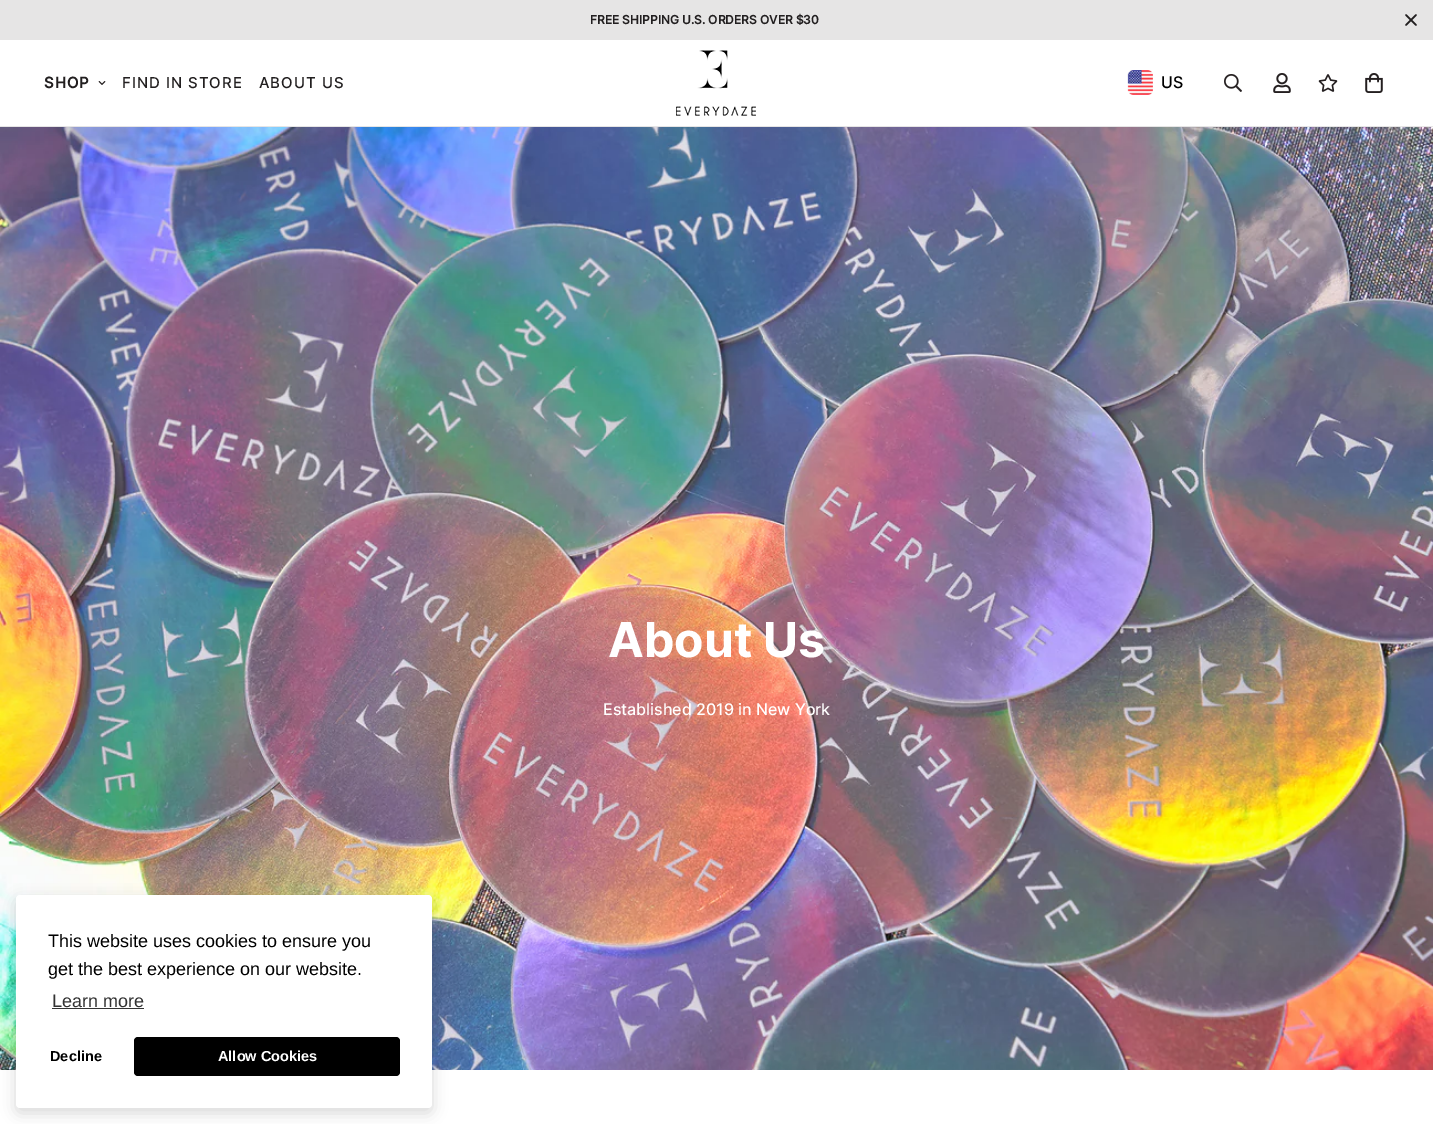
%!PS
<< /PageSize [1433 1124] /PageUsesTransparency true >> setpagedevice
/rgb { dup -16 bitshift 255 div exch dup -8 bitshift 255 and 255 div exch 255 and 255 div setrgbcolor } def
/font { [ exch dup neg 0 0 3 -1 roll 0 0 ] selectfont } def
/text { moveto show } def
/alpha { dup .setfillconstantalpha .setstrokeconstantalpha } def
/roundrect { 5 dict begin { /r /h /w /y /x } { exch def } forall
  x r add y moveto x w add y 2 copy h add r arct x w add y h add x 1 index r arct
  x y h add x y r arct x y 2 copy exch w add exch r arct closepath end } def
/shadow { 12 dict begin { /a /b /q /h /w /y /x } { exch def } forall gsave /was 0 def
  9 -2 -9 { dup b mul 4 div /e exch def 1 sub .425 mul 2.718 exch exp 1 add a .99 .min exch div /now exch def
    1 1 now sub 1 was sub div sub alpha /was now def
    w h .min e 2 mul add 0 gt { x e sub y e sub w e 2 mul add h e 2 mul add
      q e add b .6 mul add w h .min 2 div e add .min 0 .max roundrect fill } if } for grestore end } def
/picture { 5 dict begin { /h /w /y /x /name } { exch def } forall
  gsave x y translate w h scale
  w h 8 [w 0 0 h 0 0] name (r) file false 3 colorimage grestore end } def
0 .pushpdf14devicefilter
0 1124 translate 1 -1 scale
4 setmiterlimit
/s1 { /Inter-Bold 12 font 16#221F20 rgb } def
/s2 { /Inter-Medium 16 font 16#000000 rgb } def
/s3 { /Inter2-Bold 48 font 16#FFFFFF rgb } def
/s4 { /Inter-Medium 16 font 16#FFFFFF rgb } def
/s5 { /LiberationSans-Regular 18 font 16#000000 rgb } def
/s6 { /LiberationSans-Regular 18 font 16#333333 rgb } def
/s7 { /LiberationSans-Bold 14.5 font 16#000000 rgb } def
/s8 { /LiberationSans-Bold 14.5 font 16#FFFFFF rgb } def
16#FFFFFF rgb
0 0 1433 1124 rectfill
16#E6E5E5 rgb
0 0 1433 40 rectfill
s1
(FREE SHIPPING U.S. ORDERS OVER $30) 590 24 text
1.7 setlinewidth
1 setlinecap
1 setlinejoin
1406 25 moveto 1416 15 lineto 1406 15 moveto 1416 25 lineto stroke
16#E6E5E5 rgb
0 126 1433 1 rectfill
/Inter-Bold 15 font
16#221F20 rgb
44 88 moveto 1 0 (SHOP) ashow
(pic1.raw) 98 81 8 4 picture
/Inter-Medium 15 font
122 88 moveto 1 0 (FIND IN STORE) ashow
259 88 moveto 1 0 (ABOUT US) ashow
(pic2.raw) 676 50 80 66 picture
(pic3.raw) 1127 70 26 25 picture
s2
(US) 1161 88 text
(pic4.raw) 1224 74 18 18 picture
(pic5.raw) 1273 73 18 20 picture
(pic6.raw) 1318 74 20 18 picture
(pic7.raw) 1365 73 18 20 picture
(pic8.raw) 0 127 1433 943 picture
s3
(About Us) 608 657 text
s4
(Established 2019 in New York) 603 715 text
16#000000 rgb
16 900 416 213 4 7.5 0.15 shadow
16#FFFFFF rgb
16 895 416 213 4 roundrect fill
s5
(This website uses cookies to ensure you) 48 947 text
(get the best experience on our website.) 48 975 text
s6
(Learn more) 52 1007 text
52 1008 92 1 rectfill
s7
(Decline) 50 1061 text
134 1037 266 39 4 roundrect fill
s8
(Allow Cookies) 218 1061 text
.poppdf14devicefilter showpage
